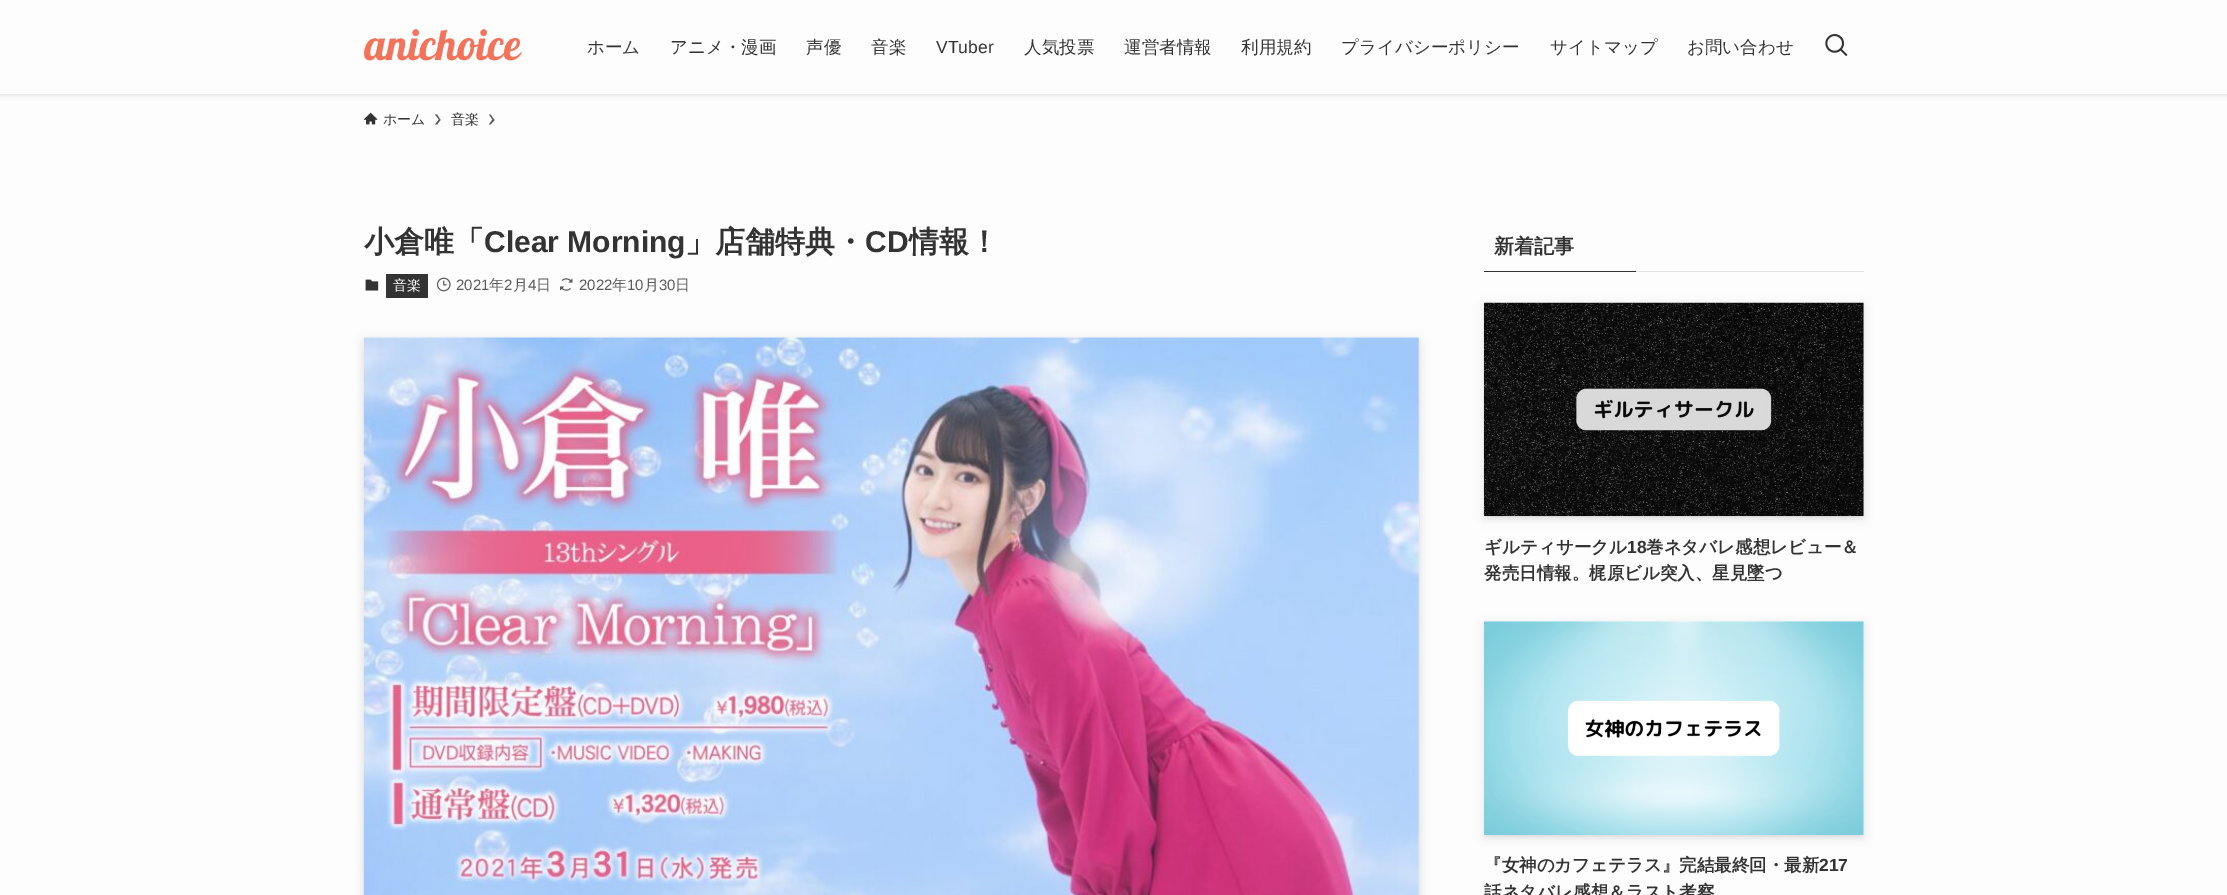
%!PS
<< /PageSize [2227 895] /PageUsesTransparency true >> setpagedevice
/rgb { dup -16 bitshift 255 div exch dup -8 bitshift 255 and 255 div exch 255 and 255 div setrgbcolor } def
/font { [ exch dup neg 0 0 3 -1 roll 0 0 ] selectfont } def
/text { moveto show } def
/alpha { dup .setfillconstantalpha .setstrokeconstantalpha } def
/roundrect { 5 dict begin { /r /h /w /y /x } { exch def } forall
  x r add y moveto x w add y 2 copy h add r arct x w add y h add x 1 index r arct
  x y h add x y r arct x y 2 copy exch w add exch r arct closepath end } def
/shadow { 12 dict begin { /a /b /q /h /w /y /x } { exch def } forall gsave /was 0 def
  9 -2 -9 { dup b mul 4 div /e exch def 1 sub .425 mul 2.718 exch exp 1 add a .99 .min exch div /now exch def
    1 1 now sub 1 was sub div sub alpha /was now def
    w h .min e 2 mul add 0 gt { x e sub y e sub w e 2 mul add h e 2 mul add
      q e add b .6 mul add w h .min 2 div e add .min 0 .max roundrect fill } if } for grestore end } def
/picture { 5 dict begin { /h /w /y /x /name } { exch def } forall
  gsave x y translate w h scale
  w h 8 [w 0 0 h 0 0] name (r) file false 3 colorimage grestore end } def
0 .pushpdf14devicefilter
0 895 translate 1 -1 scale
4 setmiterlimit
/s1 { /WenQuanYiZenHei-Medium 17.5 font 16#333333 rgb } def
/s2 { /LiberationSans-Regular 17.5 font 16#333333 rgb } def
/s3 { /WenQuanYiZenHei-Medium 14 font 16#333333 rgb } def
/s4 { /WenQuanYiZenHei-Bold 30 font 16#333333 rgb } def
/s5 { /LiberationSans-Bold 30 font 16#333333 rgb } def
/s6 { /WenQuanYiZenHei-Medium 14 font 16#FFFFFF rgb } def
/s7 { /LiberationSans-Regular 15 font 16#5B5B5B rgb } def
/s8 { /WenQuanYiZenHei-Medium 15 font 16#5B5B5B rgb } def
/s9 { /WenQuanYiZenHei-Bold 20 font 16#333333 rgb } def
/s10 { /WenQuanYiZenHei-Bold 17.5 font 16#333333 rgb } def
/s11 { /LiberationSans-Bold 17.5 font 16#333333 rgb } def
16#FDFDFD rgb
0 0 2227 895 rectfill
16#000000 rgb
0 1 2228 94 0 2.5 0.12 shadow
16#FDFDFD rgb
0 0 2227 94 rectfill
(pic1.raw) 363 28 160 33 picture
s1
(ホーム) 587 53 text
(アニメ・漫画) 670 53 text
(声優) 806 53 text
(音楽) 871 53 text
s2
(VTuber) 936 53 text
s1
(人気投票) 1024 53 text
(運営者情報) 1124 53 text
(利用規約) 1241 53 text
(プライバシーポリシー) 1341 53 text
(サイトマップ) 1550 53 text
(お問い合わせ) 1687 53 text
(pic2.raw) 1825 34 23 22 picture
(pic3.raw) 363 112 15 13 picture
s3
(ホーム) 383 124 text
16#5B5B5B rgb
437 114.5 moveto 435 114.5 lineto 439 119.5 lineto 435 124.5 lineto 437 124.5 lineto 440.5 120 lineto closepath fill
s3
(音楽) 451 124 text
16#5B5B5B rgb
490.5 114.5 moveto 489 114.5 lineto 492.5 119.5 lineto 489 124.5 lineto 490.5 124.5 lineto 494.5 120 lineto closepath fill
s4
(小倉唯「) 364 252 text
s5
(Clear Morning) 484 252 text
s4
(」店舗特典・) 685 252 text
s5
(CD) 865 252 text
s4
(情報！) 909 252 text
(pic4.raw) 365 279 14 12 picture
386 274 42 24 1 roundrect fill
s6
(音楽) 393 290 text
(pic5.raw) 436 277 15 15 picture
s7
(2021) 456 290 text
s8
(年) 489 290 text
s7
(2) 504 290 text
s8
(月) 513 290 text
s7
(4) 528 290 text
s8
(日) 536 290 text
(pic6.raw) 560 278 13 13 picture
s7
(2022) 579 290 text
s8
(年) 612 290 text
s7
(10) 627 290 text
s8
(月) 644 290 text
s7
(30) 659 290 text
s8
(日) 675 290 text
16#000000 rgb
369 348 1045 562 0 5 0.2 shadow
364 340 1055 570 0 5 0.1 shadow
(pic7.raw) 363 337 1056 558 picture
s9
(新着記事) 1494 253 text
1484 271 152 1 rectfill
16#E2E2E2 rgb
1636 271 228 1 rectfill
16#000000 rgb
1489 313 370 203 0 2.5 0.1 shadow
1484 305 380 214 0 5 0.1 shadow
(pic8.raw) 1483 302 381 215 picture
s10
(ギルティサークル) 1484 553 text
s11
(18) 1627 553 text
s10
(巻ネタバレ感想レビュー＆) 1646 553 text
(発売日情報。梶原ビル突入、星見墜つ) 1484 579 text
16#000000 rgb
1489 631 370 204 0 2.5 0.1 shadow
1484 624 380 214 0 5 0.1 shadow
(pic9.raw) 1483 621 381 214 picture
s10
(『女神のカフェテラス』完結最終回・最新) 1484 871 text
s11
(217) 1819 871 text
s10
(話ネタバレ感想＆ラスト考察) 1484 898 text
.poppdf14devicefilter showpage
